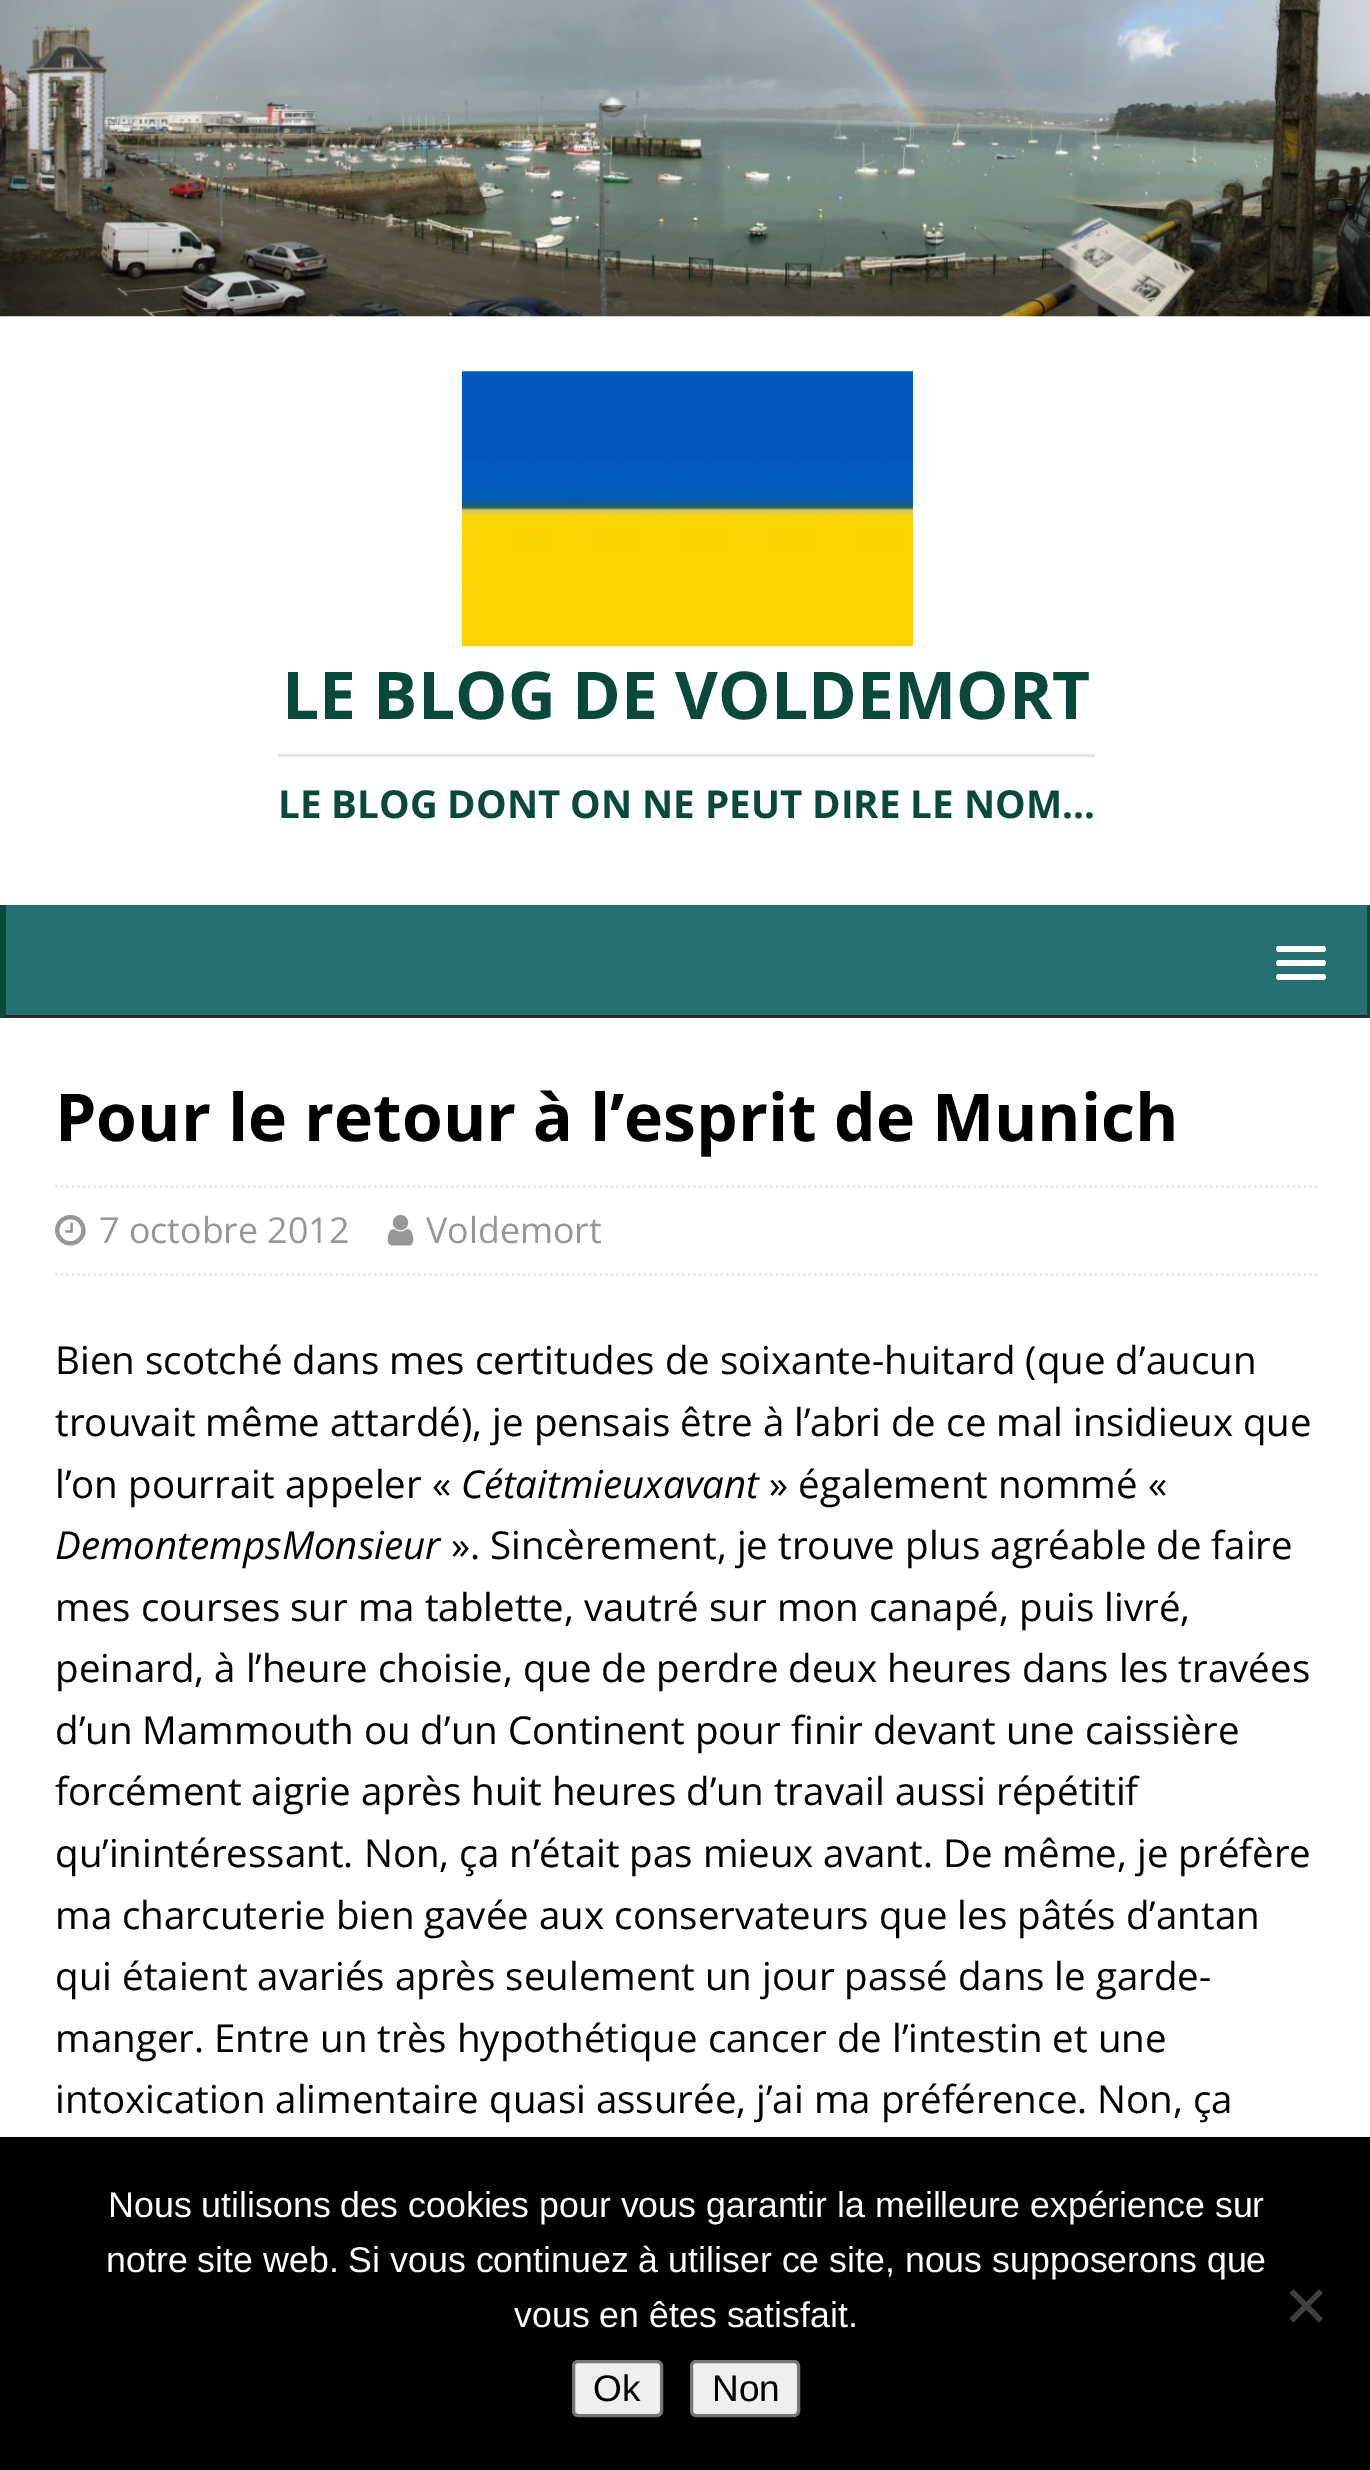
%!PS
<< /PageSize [1370 2470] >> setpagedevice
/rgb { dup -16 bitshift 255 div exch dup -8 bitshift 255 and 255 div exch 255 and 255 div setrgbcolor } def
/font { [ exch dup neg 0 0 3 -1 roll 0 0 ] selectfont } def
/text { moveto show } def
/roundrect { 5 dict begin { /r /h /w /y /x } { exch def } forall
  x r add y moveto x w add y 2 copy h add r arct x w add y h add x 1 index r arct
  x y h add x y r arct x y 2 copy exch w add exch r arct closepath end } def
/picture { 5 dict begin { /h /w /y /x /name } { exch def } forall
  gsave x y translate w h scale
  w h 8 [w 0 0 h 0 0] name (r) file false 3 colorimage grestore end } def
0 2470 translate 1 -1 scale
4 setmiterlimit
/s1 { /OpenSans-Bold 66 font 16#08493A rgb } def
/s2 { /OpenSans-Bold 38.5 font 16#08493A rgb } def
/s3 { /OpenSans-Bold 66 font 16#000000 rgb } def
/s4 { /OpenSans-Regular 35.75 font 16#979797 rgb } def
/s5 { /OpenSans-Regular 38.5 font 16#000000 rgb } def
/s6 { /OpenSans-Italic 38.5 font 16#000000 rgb } def
/s7 { /LiberationSans-Regular 35.75 font 16#FFFFFF rgb } def
/s8 { /LiberationSans-Regular 37 font 16#000000 rgb } def
16#FFFFFF rgb
0 0 1370 2470 rectfill
(pic1.raw) 0 0 1370 317 picture
(pic2.raw) 462 371 451 276 picture
s1
(LE BLOG DE VOLDEMORT) 282 719 text
16#E5E5E5 rgb
278 754 817 3 rectfill
s2
(LE BLOG DONT ON NE PEUT DIRE LE NOM...) 278 818 text
16#257070 rgb
6 905 1361 110 rectfill
16#08493A rgb
1367 905 3 113 rectfill
0 905 6 113 rectfill
16#2A2A2A rgb
6 1015 1361 3 rectfill
16#FFFFFF rgb
1276 946 50 6 3 roundrect fill
1276 960 50 6 3 roundrect fill
1276 974 50 6 3 roundrect fill
s3
(Pour le retour à l’esprit de Munich) 55 1141 text
16#EBEBEB rgb
2.8 setlinewidth
[2.75 2.75] 0 setdash
55 1186.5 moveto 1317 1186.5 lineto stroke
55 1274.5 moveto 1317 1274.5 lineto stroke
(pic3.raw) 55 1214 31 32 picture
s4
(7 octobre 2012) 99 1243 text
(pic4.raw) 387 1214 27 32 picture
(Voldemort) 426 1243 text
s5
(Bien scotché dans mes certitudes de soixante-huitard \(que d’aucun) 55 1374 text
(trouvait même attardé\), je pensais être à l’abri de ce mal insidieux que) 55 1436 text
(l’on pourrait appeler «) 55 1498 text
s6
(Cétaitmieuxavant) 461 1498 text
s5
(» également nommé «) 769 1498 text
s6
(DemontempsMonsieur) 55 1559 text
s5
(». Sincèrement, je trouve plus agréable de faire) 451 1559 text
(mes courses sur ma tablette, vautré sur mon canapé, puis livré,) 55 1621 text
(peinard, à l’heure choisie, que de perdre deux heures dans les travées) 55 1682 text
(d’un Mammouth ou d’un Continent pour finir devant une caissière) 55 1744 text
(forcément aigrie après huit heures d’un travail aussi répétitif) 55 1805 text
(qu’inintéressant. Non, ça n’était pas mieux avant. De même, je préfère) 55 1867 text
(ma charcuterie bien gavée aux conservateurs que les pâtés d’antan) 55 1929 text
(qui étaient avariés après seulement un jour passé dans le garde-) 55 1990 text
(manger. Entre un très hypothétique cancer de l’intestin et une) 55 2052 text
(intoxication alimentaire quasi assurée, j’ai ma préférence. Non, ça) 55 2113 text
0 2137 1370 333 rectfill
s7
(Nous utilisons des cookies pour vous garantir la meilleure expérience sur) 108 2217 text
(notre site web. Si vous continuez à utiliser ce site, nous supposerons que) 106 2272 text
(vous en êtes satisfait.) 514 2327 text
16#404040 rgb
1319 2289.5 moveto 1323 2293 lineto 1293.5 2322.5 lineto 1289.5 2318.5 lineto closepath fill
1289.5 2293 moveto 1293.5 2289.5 lineto 1323 2318.5 lineto 1319 2322.5 lineto closepath fill
16#EFEFEF rgb
573.5 2361.5 88 54 4.5 roundrect gsave fill grestore
16#767676 rgb
3 setlinewidth
[] 0 setdash
stroke
s8
(Ok) 593 2401 text
16#EFEFEF rgb
691.5 2361.5 107 54 4.5 roundrect gsave fill grestore
16#767676 rgb
stroke
s8
(Non) 712 2401 text
showpage
